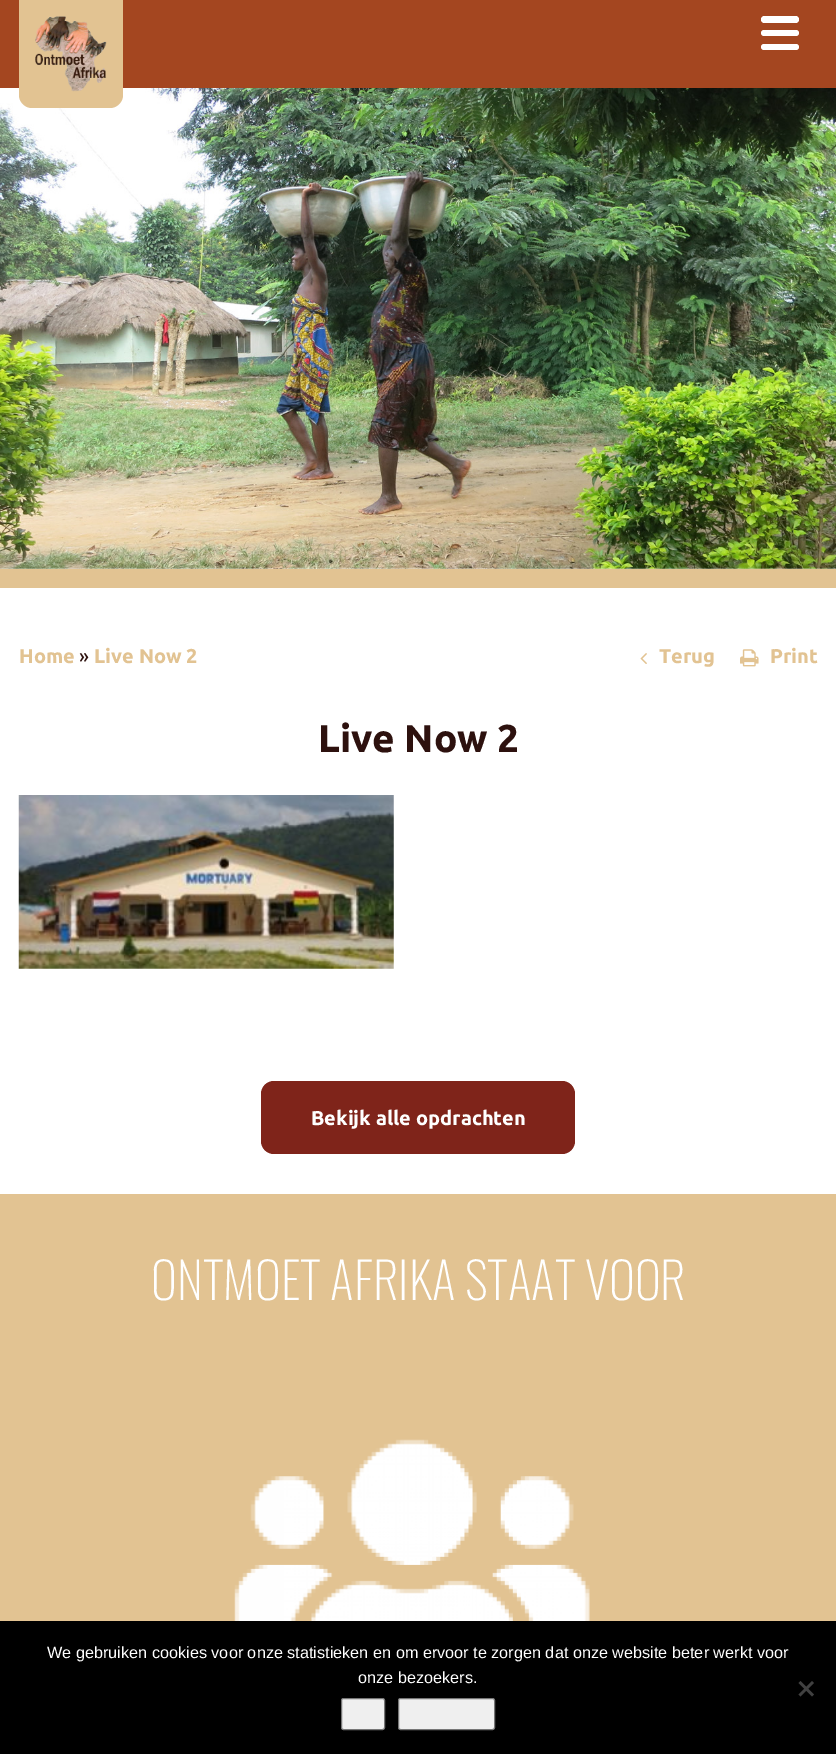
%!PS
<< /PageSize [836 1754] >> setpagedevice
/rgb { dup -16 bitshift 255 div exch dup -8 bitshift 255 and 255 div exch 255 and 255 div setrgbcolor } def
/font { [ exch dup neg 0 0 3 -1 roll 0 0 ] selectfont } def
/text { moveto show } def
/roundrect { 5 dict begin { /r /h /w /y /x } { exch def } forall
  x r add y moveto x w add y 2 copy h add r arct x w add y h add x 1 index r arct
  x y h add x y r arct x y 2 copy exch w add exch r arct closepath end } def
/picture { 5 dict begin { /h /w /y /x /name } { exch def } forall
  gsave x y translate w h scale
  w h 8 [w 0 0 h 0 0] name (r) file false 3 colorimage grestore end } def
0 1754 translate 1 -1 scale
4 setmiterlimit
/s1 { /Ubuntu-Bold 20 font 16#E2C392 rgb } def
/s2 { /Ubuntu-Regular 20 font 16#2D110E rgb } def
/s3 { /Ubuntu-Bold 38.75 font 16#2D110E rgb } def
/s4 { /Ubuntu-Bold 20 font 16#FFFFFF rgb } def
/s5 { /Oswald-ExtraLight 50 font 16#FFFFFF rgb } def
/s6 { /LiberationSans-Regular 16.25 font 16#FFFFFF rgb } def
16#FFFFFF rgb
0 0 836 1754 rectfill
16#A44620 rgb
0 0 836 88 rectfill
(pic2.raw) 0 88 836 481 picture
16#E2C392 rgb
19 0 moveto 123 0 lineto 123 95 lineto 123 102 117 108 110 108 curveto 32 108 lineto 25 108 19 102 19 95 curveto closepath fill
(pic1.raw) 35 16 72 76 picture
16#FFFFFF rgb
761 16 38 7 3.5 roundrect fill
761 30 38 6 3 roundrect fill
761 44 38 6 3 roundrect fill
16#E2C392 rgb
0 569 836 19 rectfill
s1
(Home) 19 663 text
s2
(») 79 663 text
s1
(Live Now 2) 94 663 text
(pic3.raw) 640 653 7 11 picture
(Terug) 659 663 text
(pic4.raw) 740 649 19 18 picture
(Print) 770 663 text
s3
(Live Now 2) 318 752 text
(pic5.raw) 18 795 376 174 picture
16#E2C392 rgb
0 1194 836 427 rectfill
16#7F241A rgb
261 1081 314 73 13 roundrect fill
s4
(Bekijk alle opdrachten) 311 1125 text
s5
(ONTMOET AFRIKA STAAT VOOR) 151 1300 text
(pic6.raw) 234 1439 356 182 picture
16#000000 rgb
0 1621 836 133 rectfill
s6
(We gebruiken cookies voor onze statistieken en om ervoor te zorgen dat onze website beter werkt voor) 47 1658 text
(onze bezoekers.) 358 1683 text
16#404040 rgb
812 1681 moveto 814 1683 lineto 800.5 1696.5 lineto 798.5 1694.5 lineto closepath fill
798.5 1683 moveto 800.5 1681 lineto 814 1694.5 lineto 812 1696.5 lineto closepath fill
16#EFEFEF rgb
341.5 1698.5 43 31 2 roundrect gsave fill grestore
16#767676 rgb
stroke
16#EFEFEF rgb
398.5 1698.5 96 31 2 roundrect gsave fill grestore
16#767676 rgb
stroke
showpage
